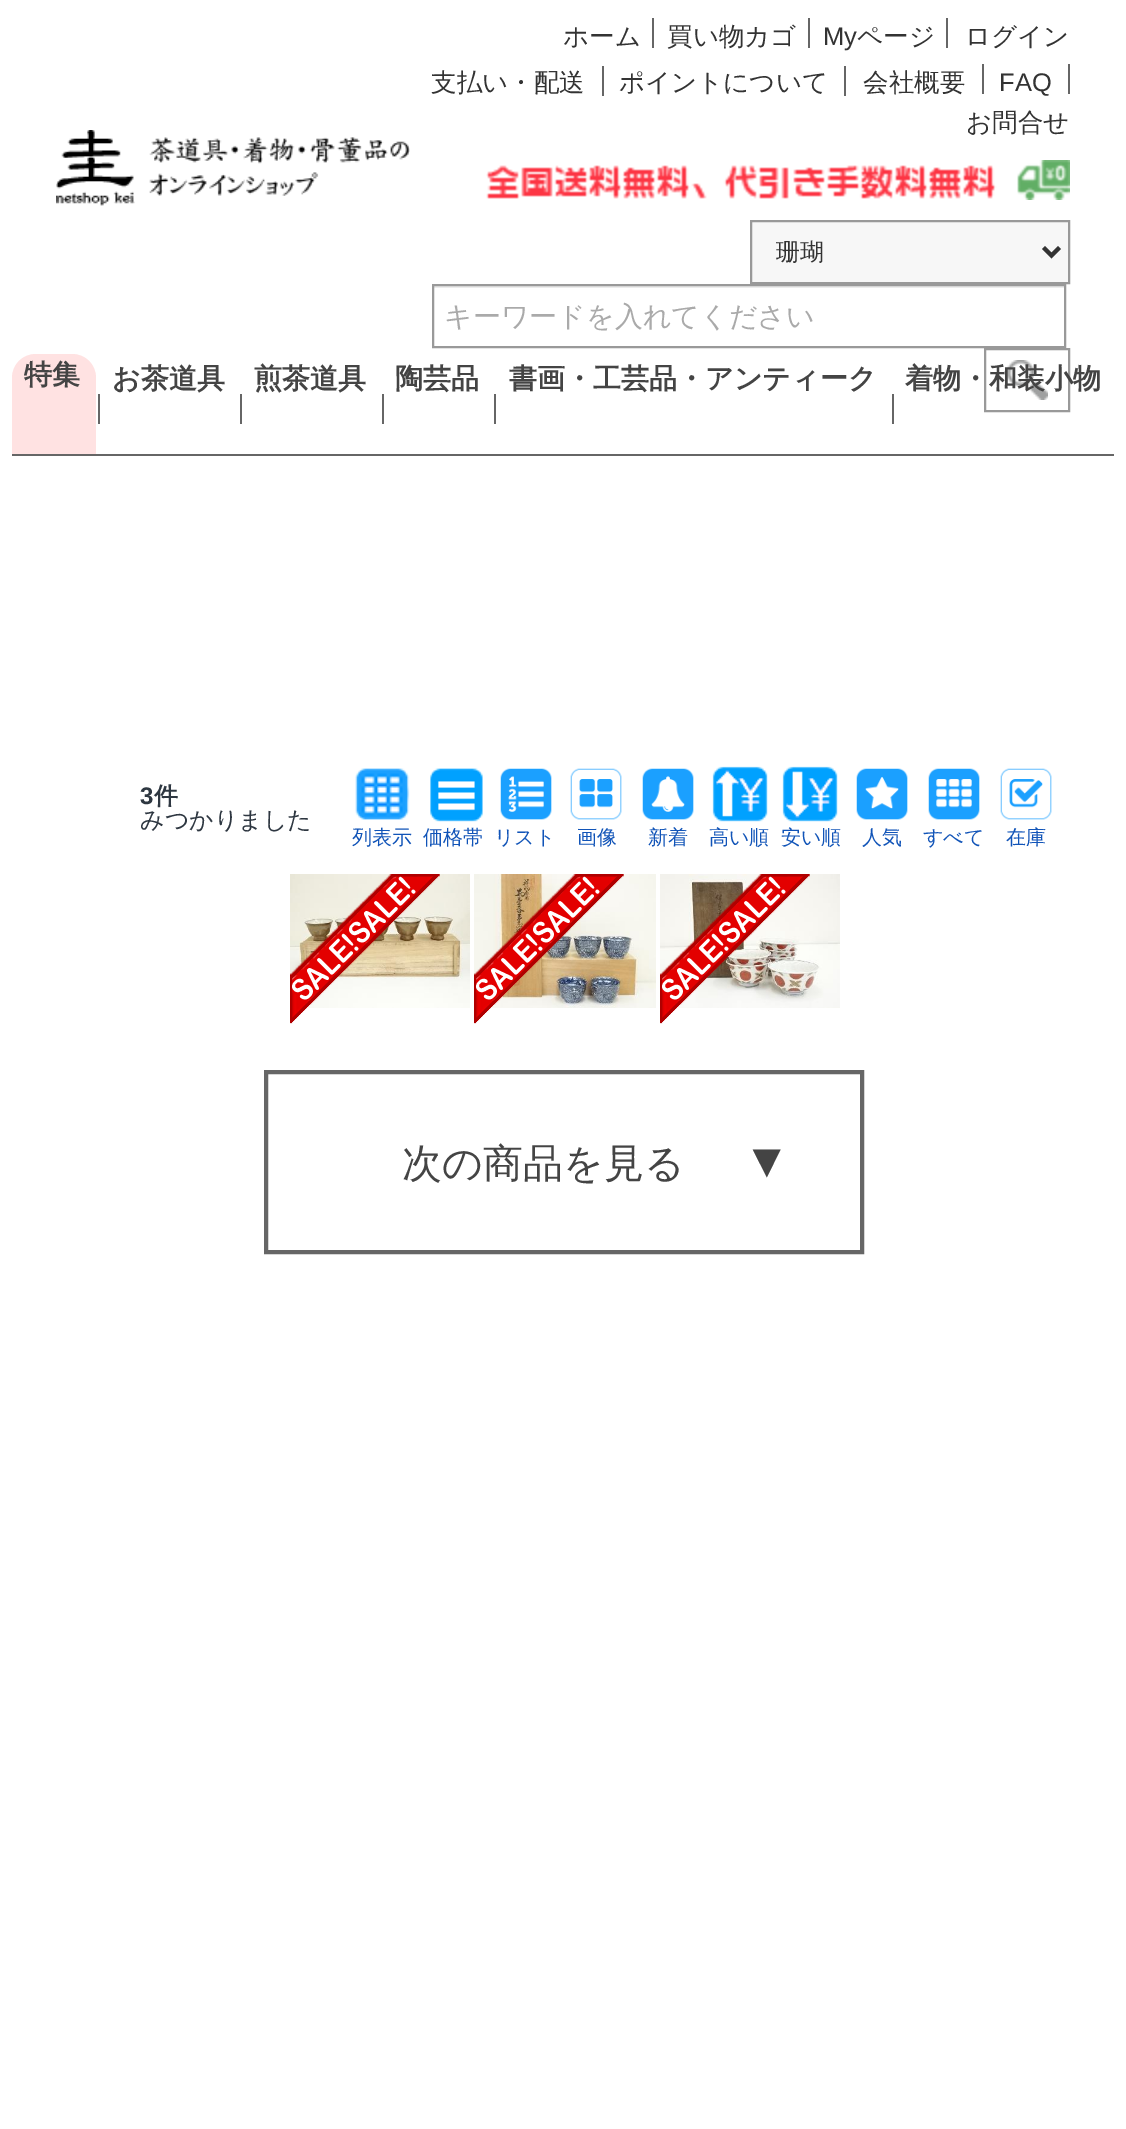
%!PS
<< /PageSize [1126 2129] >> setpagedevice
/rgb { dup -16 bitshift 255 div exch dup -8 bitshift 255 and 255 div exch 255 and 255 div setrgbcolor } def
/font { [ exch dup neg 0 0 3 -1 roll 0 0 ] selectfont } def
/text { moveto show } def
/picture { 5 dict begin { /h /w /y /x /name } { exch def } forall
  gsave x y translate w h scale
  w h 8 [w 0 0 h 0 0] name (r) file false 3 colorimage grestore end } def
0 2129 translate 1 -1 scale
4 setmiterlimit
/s1 { /WenQuanYiZenHei-Medium 25.5 font 16#333333 rgb } def
/s2 { /LiberationSans-Regular 25.5 font 16#333333 rgb } def
/s3 { /WenQuanYiZenHei-Medium 24 font 16#333333 rgb } def
/s4 { /WenQuanYiZenHei-Medium 28 font 16#AAAAAA rgb } def
/s5 { /WenQuanYiZenHei-Bold 28 font 16#444444 rgb } def
/s6 { /LiberationSans-Bold 24 font 16#2E3741 rgb } def
/s7 { /WenQuanYiZenHei-Bold 24 font 16#2E3741 rgb } def
/s8 { /WenQuanYiZenHei-Medium 24 font 16#2E3741 rgb } def
/s9 { /WenQuanYiZenHei-Medium 20 font 16#1154B8 rgb } def
/s10 { /WenQuanYiZenHei-Medium 40 font 16#444444 rgb } def
/s11 { /LiberationSans-Regular 48 font 16#444444 rgb } def
16#FFFFFF rgb
0 0 1126 2129 rectfill
(pic1.raw) 56 130 354 76 picture
s1
(ホーム) 563 45 text
16#666666 rgb
652 18 2 30 rectfill
s1
(買い物カゴ) 667 45 text
16#666666 rgb
808 18 2 30 rectfill
s2
(My) 823 45 text
s1
(ページ) 857 45 text
16#666666 rgb
946 18 2 30 rectfill
s1
(ログイン) 965 45 text
(支払い・配送) 431 91 text
16#666666 rgb
602 66 2 30 rectfill
s1
(ポイントについて) 619 91 text
16#666666 rgb
844 66 2 30 rectfill
s1
(会社概要) 863 91 text
16#666666 rgb
982 64 2 30 rectfill
s2
(FAQ) 999 91 text
16#666666 rgb
1068 64 2 30 rectfill
s1
(お問合せ) 966 131 text
(pic2.raw) 486 160 584 40 picture
16#F7F7F7 rgb
751 221 moveto 1069 221 lineto 1069 283 lineto 751 283 lineto closepath gsave fill grestore
16#999999 rgb
2 setlinewidth
stroke
16#333333 rgb
4 setlinewidth
1043.5 247.5 moveto 1051.5 255.5 lineto 1059.5 247.5 lineto stroke
s3
(珊瑚) 776 260 text
16#ECECEC rgb
434 286 630 2 rectfill
16#999999 rgb
2 setlinewidth
433 285 632 62 rectstroke
s4
(キーワードを入れてください) 444 326 text
16#999999 rgb
985 349 84 62 rectstroke
(pic3.raw) 1006 360 42 40 picture
16#666666 rgb
12 454 1102 2 rectfill
16#FFE2E2 rgb
36 354 moveto 72 354 lineto 85.5 354 96 364.5 96 378 curveto 96 454 lineto 12 454 lineto 12 378 lineto 12 364.5 22.5 354 36 354 curveto closepath fill
s5
(特集) 24 384 text
(お茶道具) 112 388 text
16#666666 rgb
98 394 2 30 rectfill
s5
(煎茶道具) 254 388 text
16#666666 rgb
240 394 2 30 rectfill
s5
(陶芸品) 395 388 text
16#666666 rgb
382 394 2 30 rectfill
s5
(書画・工芸品・アンティーク) 509 388 text
16#666666 rgb
494 394 2 30 rectfill
s5
(着物・和装小物) 905 388 text
16#666666 rgb
892 394 2 30 rectfill
s6
(3) 140 804 text
s7
(件) 154 804 text
s8
(みつかりました) 140 828 text
(pic4.raw) 355 768 55 52 picture
s9
(列表示) 352 844 text
(pic5.raw) 430 768 53 54 picture
(価格帯) 423 844 text
(pic6.raw) 500 768 52 52 picture
(リスト) 494 844 text
(pic7.raw) 570 768 52 52 picture
(画像) 577 844 text
(pic8.raw) 642 768 52 52 picture
(新着) 648 844 text
(pic9.raw) 712 766 56 56 picture
(高い順) 709 844 text
(pic10.raw) 782 766 56 56 picture
(安い順) 781 844 text
(pic11.raw) 856 768 52 52 picture
(人気) 862 844 text
(pic12.raw) 928 768 52 52 picture
(すべて) 923 844 text
(pic13.raw) 1000 768 52 52 picture
(在庫) 1006 844 text
(pic14.raw) 290 874 180 134 picture
(pic15.raw) 290 874 150 150 picture
(pic16.raw) 474 874 182 134 picture
(pic17.raw) 474 874 150 150 picture
(pic18.raw) 660 874 180 134 picture
(pic19.raw) 660 874 150 150 picture
16#666666 rgb
4 setlinewidth
266 1072 596 180 rectstroke
s10
(次の商品を見る) 402 1177 text
s11
(▼) 743 1177 text
showpage
